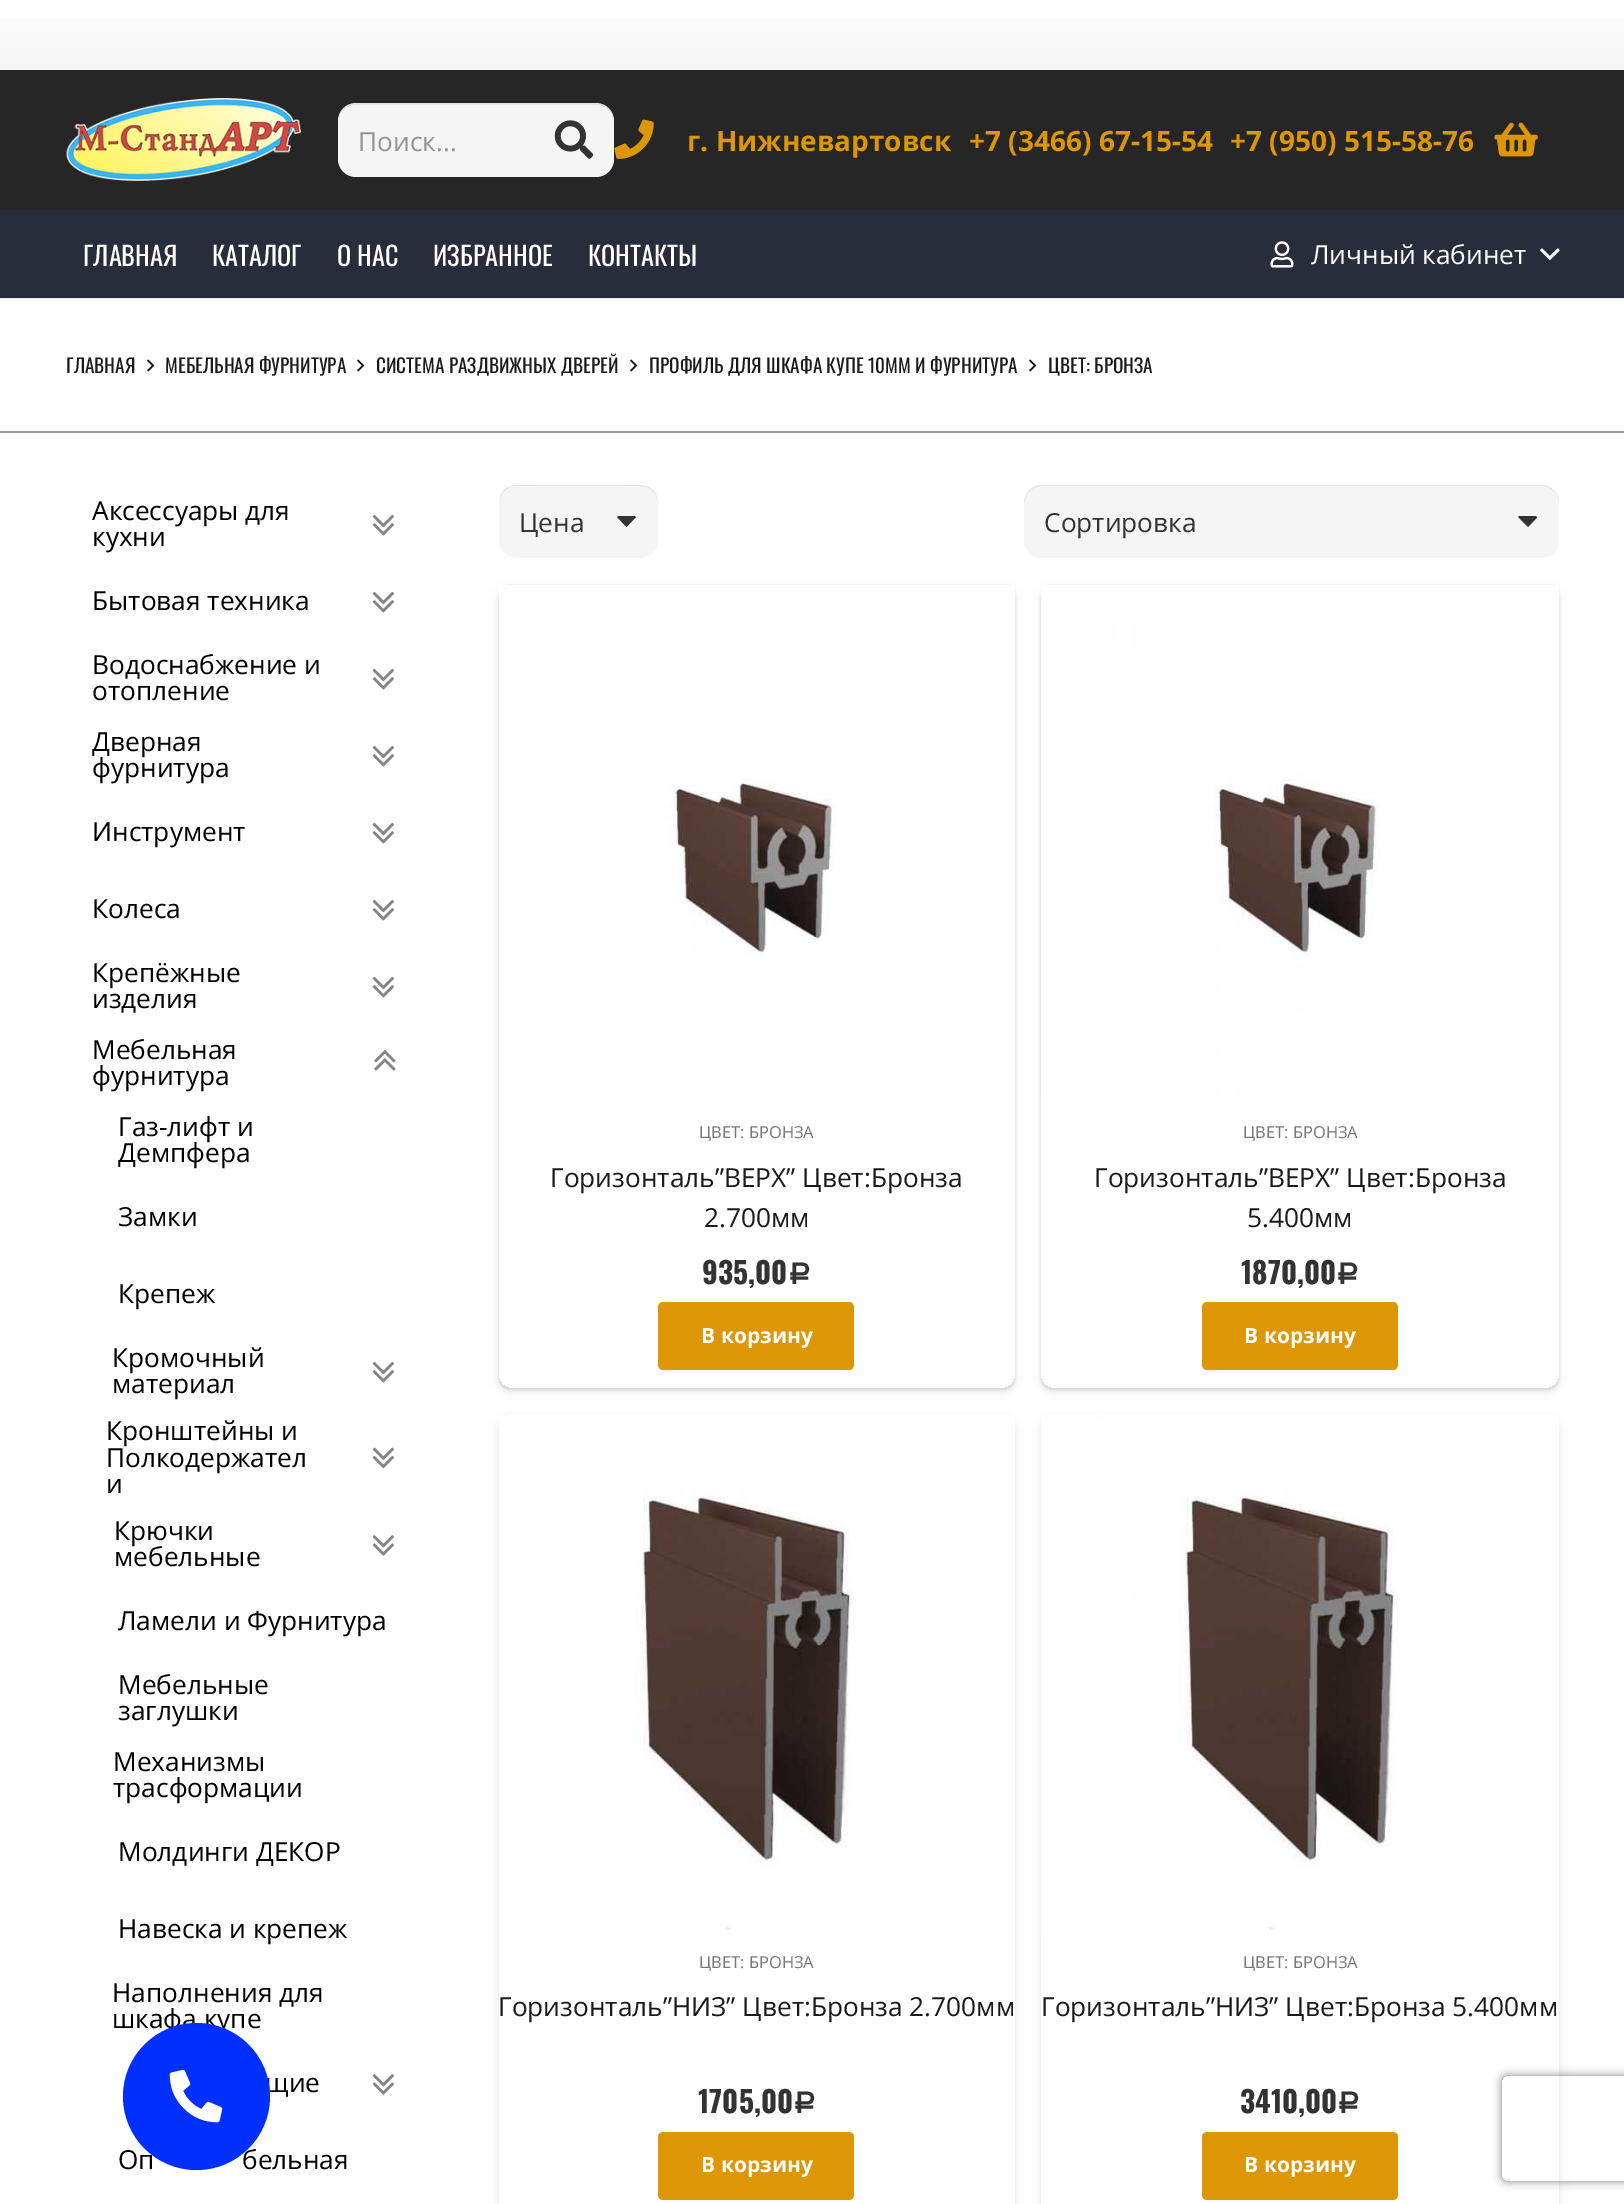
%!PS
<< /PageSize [1624 2204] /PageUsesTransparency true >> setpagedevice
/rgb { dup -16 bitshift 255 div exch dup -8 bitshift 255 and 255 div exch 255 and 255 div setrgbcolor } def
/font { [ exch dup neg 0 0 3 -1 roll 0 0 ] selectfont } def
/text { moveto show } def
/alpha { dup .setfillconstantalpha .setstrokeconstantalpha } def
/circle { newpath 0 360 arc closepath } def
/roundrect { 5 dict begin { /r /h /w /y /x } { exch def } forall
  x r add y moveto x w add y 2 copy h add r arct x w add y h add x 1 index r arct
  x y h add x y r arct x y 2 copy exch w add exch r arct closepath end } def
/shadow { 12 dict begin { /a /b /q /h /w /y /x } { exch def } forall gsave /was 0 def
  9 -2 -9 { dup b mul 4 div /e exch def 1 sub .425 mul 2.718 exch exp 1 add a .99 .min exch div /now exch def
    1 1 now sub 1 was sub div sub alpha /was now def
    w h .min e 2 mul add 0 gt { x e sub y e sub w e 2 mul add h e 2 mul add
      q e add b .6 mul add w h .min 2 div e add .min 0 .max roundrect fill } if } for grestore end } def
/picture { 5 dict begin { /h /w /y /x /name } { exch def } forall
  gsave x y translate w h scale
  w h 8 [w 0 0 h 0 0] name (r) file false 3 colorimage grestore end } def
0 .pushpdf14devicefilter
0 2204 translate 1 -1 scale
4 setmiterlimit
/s1 { /OpenSans-Regular 26.25 font 16#949494 rgb } def
/s2 { /OpenSans-Bold 28 font 16#DD9606 rgb } def
/s3 { /Oswald-Regular 26.25 font 16#FFFFFF rgb } def
/s4 { /OpenSans-Regular 26.25 font 16#FFFFFF rgb } def
/s5 { /Oswald-Regular 19.25 font 16#1A1A1A rgb } def
/s6 { /OpenSans-Regular 26.25 font 16#000000 rgb } def
/s7 { /OpenSans-Regular 26.25 font 16#333333 rgb } def
/s8 { /OpenSans-Regular 16.5 font 16#777777 rgb } def
/s9 { /OpenSans-Regular 26.25 font 16#1A1A1A rgb } def
/s10 { /Oswald-Bold 29.5 font 16#333333 rgb } def
/s11 { /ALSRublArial-Bold 29.5 font 16#333333 rgb } def
/s12 { /OpenSans-Bold 21 font 16#FFFFFF rgb } def
16#FFFFFF rgb
0 0 1624 2204 rectfill
gsave 0 18 moveto 1624 18 lineto 1624 70 lineto 0 70 lineto closepath clip newpath
<< /ShadingType 2 /ColorSpace /DeviceRGB /Coords [812 70 812 0] /Extend [true true] /Function << /FunctionType 2 /Domain [0 1] /C0 [0.961 0.961 0.961] /C1 [1 1 1] /N 1 >> >> shfill grestore
16#262626 rgb
0 70 1624 140 rectfill
(pic1.raw) 66 98 235 83 picture
16#F5F5F5 rgb
338 103 276 74 18 roundrect fill
0.08 alpha
16#000000 rgb
355 105 moveto 597 105 lineto 606 105 614 113 614 122 curveto 614 121 lineto 614 111 606 103 596 103 curveto 356 103 lineto 346 103 338 111 338 121 curveto 338 122 lineto 338 113 346 105 355 105 curveto closepath fill
1 alpha
s1
(Поиск...) 358 151 text
(pic2.raw) 554 120 40 39 picture
(pic3.raw) 614 119 40 40 picture
s2
(г. Нижневартовск) 687 151 text
(+7 \(3466\) 67-15-54) 969 151 text
(+7 \(950\) 515-58-76) 1230 151 text
(pic4.raw) 1494 122 44 35 picture
16#EBEBEB rgb
0 298 1624 1 rectfill
16#282D3B rgb
0 210 1624 88 rectfill
s3
(ГЛАВНАЯ) 83 266 text
(КАТАЛОГ) 212 266 text
(О НАС) 337 266 text
(ИЗБРАННОЕ) 433 266 text
(КОНТАКТЫ) 588 266 text
(pic5.raw) 1270 241 24 27 picture
s4
(Личный кабинет) 1311 264 text
(pic6.raw) 1540 248 20 12 picture
16#999999 rgb
0 431 1624 2 rectfill
s5
(ГЛАВНАЯ) 66 373 text
(pic7.raw) 147 359 8 13 picture
(МЕБЕЛЬНАЯ ФУРНИТУРА) 165 373 text
(pic7.raw) 357 359 8 13 picture
(СИСТЕМА РАЗДВИЖНЫХ ДВЕРЕЙ) 376 373 text
(pic7.raw) 630 359 8 13 picture
(ПРОФИЛЬ ДЛЯ ШКАФА КУПЕ 10ММ И ФУРНИТУРА) 649 373 text
(pic7.raw) 1029 359 8 13 picture
(ЦВЕТ: БРОНЗА) 1048 373 text
s6
(Аксессуары для) 92 520 text
(кухни) 92 546 text
(pic8.raw) 372 514 22 22 picture
(Бытовая техника) 92 610 text
(pic8.raw) 372 591 22 22 picture
(Водоснабжение и) 92 674 text
(отопление) 92 700 text
(pic8.raw) 372 668 22 22 picture
(Дверная) 92 751 text
(фурнитура) 92 777 text
(pic8.raw) 372 745 22 22 picture
(Инструмент) 92 841 text
(pic8.raw) 372 822 22 22 picture
(Колеса) 92 918 text
(pic8.raw) 372 899 22 22 picture
(Крепёжные) 92 982 text
(изделия) 92 1008 text
(pic8.raw) 372 976 22 22 picture
(Мебельная) 92 1059 text
(фурнитура) 92 1085 text
(pic9.raw) 374 1050 22 21 picture
(Газ-лифт и) 118 1136 text
(Демпфера) 118 1162 text
(Замки) 118 1226 text
(Крепеж) 118 1303 text
(Кромочный) 112 1367 text
(материал) 112 1393 text
(pic8.raw) 372 1361 22 22 picture
(Кронштейны и) 106 1440 text
(Полкодержател) 106 1467 text
(и) 106 1493 text
(pic10.raw) 372 1447 22 22 picture
(Крючки) 114 1540 text
(мебельные) 114 1566 text
(pic11.raw) 372 1535 22 21 picture
(Ламели и Фурнитура) 118 1630 text
(Мебельные) 118 1694 text
(заглушки) 118 1720 text
(Механизмы) 113 1771 text
(трасформации) 113 1797 text
(Молдинги ДЕКОР) 118 1861 text
(Навеска и крепеж) 118 1938 text
(Наполнения для) 112 2002 text
(шкафа купе) 112 2028 text
(щие) 265 2092 text
(pic11.raw) 372 2074 22 21 picture
(Оп) 118 2169 text
(бельная) 242 2169 text
16#F5F5F5 rgb
499 485 159 73 18 roundrect fill
0.08 alpha
16#000000 rgb
516 486 moveto 640 486 lineto 650 486 658 494 658 504 curveto 658 481 635 485 620 485 curveto 538 485 lineto 522 485 499 481 499 504 curveto 499 494 507 486 516 486 curveto closepath fill
1 alpha
s7
(Цена) 519 532 text
617 517 moveto 618.5 516 lineto 634.5 516 lineto 636 517 lineto 626.5 527 lineto closepath fill
16#F5F5F5 rgb
1024 485 535 73 18 roundrect fill
0.08 alpha
16#000000 rgb
1041 486 moveto 1542 486 lineto 1551 486 1559 494 1559 504 curveto 1559 503 lineto 1559 493 1551 485 1541 485 curveto 1042 485 lineto 1032 485 1024 493 1024 503 curveto 1024 504 lineto 1024 494 1032 486 1041 486 curveto closepath fill
1 alpha
s7
(Сортировка) 1044 532 text
1518 517 moveto 1519.5 516 lineto 1536 516 lineto 1537 517.5 lineto 1528 527 lineto closepath fill
gsave
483 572 moveto 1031 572 lineto 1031 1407 lineto 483 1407 lineto closepath 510 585 moveto 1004 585 lineto 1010 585 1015 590 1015 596 curveto 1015 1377 lineto 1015 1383 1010 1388 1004 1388 curveto 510 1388 lineto 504 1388 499 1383 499 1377 curveto 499 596 lineto 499 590 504 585 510 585 curveto closepath eoclip newpath
16#000000 rgb
499 588 516 803 11 5 0.1 shadow
grestore
gsave
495 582 moveto 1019 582 lineto 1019 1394 lineto 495 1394 lineto closepath 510 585 moveto 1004 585 lineto 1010 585 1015 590 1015 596 curveto 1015 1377 lineto 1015 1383 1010 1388 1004 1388 curveto 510 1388 lineto 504 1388 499 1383 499 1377 curveto 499 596 lineto 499 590 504 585 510 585 curveto closepath eoclip newpath
16#000000 rgb
499 586 516 804 11 1 0.1 shadow
grestore
(pic12.raw) 499 585 516 372 picture
s8
(ЦВЕТ: БРОНЗА) 699 1138 text
s9
(Горизонталь”ВЕРХ” Цвет:Бронза) 550 1187 text
(2.700мм) 704 1227 text
s10
(935,00) 702 1284 text
s11
(Р) 788 1284 text
16#DD9606 rgb
658 1302 196 68 5 roundrect fill
s12
(В корзину) 701 1343 text
gsave
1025 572 moveto 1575 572 lineto 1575 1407 lineto 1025 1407 lineto closepath 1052 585 moveto 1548 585 lineto 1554 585 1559 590 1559 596 curveto 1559 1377 lineto 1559 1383 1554 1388 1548 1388 curveto 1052 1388 lineto 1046 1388 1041 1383 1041 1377 curveto 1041 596 lineto 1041 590 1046 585 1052 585 curveto closepath eoclip newpath
16#000000 rgb
1041 588 518 803 11 5 0.1 shadow
grestore
gsave
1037 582 moveto 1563 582 lineto 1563 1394 lineto 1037 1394 lineto closepath 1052 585 moveto 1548 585 lineto 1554 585 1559 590 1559 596 curveto 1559 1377 lineto 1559 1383 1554 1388 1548 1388 curveto 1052 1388 lineto 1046 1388 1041 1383 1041 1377 curveto 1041 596 lineto 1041 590 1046 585 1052 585 curveto closepath eoclip newpath
16#000000 rgb
1041 586 518 804 11 1 0.1 shadow
grestore
(pic13.raw) 1041 585 518 517 picture
s8
(ЦВЕТ: БРОНЗА) 1243 1138 text
s9
(Горизонталь”ВЕРХ” Цвет:Бронза) 1094 1187 text
(5.400мм) 1247 1227 text
s10
(1870,00) 1241 1284 text
s11
(Р) 1336 1284 text
16#DD9606 rgb
1202 1302 196 68 5 roundrect fill
s12
(В корзину) 1244 1343 text
gsave
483 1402 moveto 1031 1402 lineto 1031 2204 lineto 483 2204 lineto closepath 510 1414 moveto 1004 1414 lineto 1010 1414 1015 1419 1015 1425 curveto 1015 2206 lineto 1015 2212 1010 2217 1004 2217 curveto 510 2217 lineto 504 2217 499 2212 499 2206 curveto 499 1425 lineto 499 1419 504 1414 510 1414 curveto closepath eoclip newpath
16#000000 rgb
499 1418 516 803 11 5 0.1 shadow
grestore
(pic14.raw) 499 1416 516 514 picture
s8
(ЦВЕТ: БРОНЗА) 699 1968 text
s9
(Горизонталь”НИЗ” Цвет:Бронза 2.700мм) 498 2016 text
s10
(1705,00) 698 2113 text
s11
(Р) 793 2113 text
16#DD9606 rgb
658 2132 196 68 5 roundrect fill
s12
(В корзину) 701 2172 text
gsave
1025 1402 moveto 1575 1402 lineto 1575 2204 lineto 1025 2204 lineto closepath 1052 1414 moveto 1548 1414 lineto 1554 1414 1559 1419 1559 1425 curveto 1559 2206 lineto 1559 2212 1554 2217 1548 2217 curveto 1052 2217 lineto 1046 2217 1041 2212 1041 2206 curveto 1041 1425 lineto 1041 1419 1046 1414 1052 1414 curveto closepath eoclip newpath
16#000000 rgb
1041 1418 518 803 11 5 0.1 shadow
grestore
(pic15.raw) 1041 1415 518 515 picture
s8
(ЦВЕТ: БРОНЗА) 1243 1968 text
s9
(Горизонталь”НИЗ” Цвет:Бронза 5.400мм) 1041 2016 text
s10
(3410,00) 1240 2113 text
s11
(Р) 1337 2113 text
16#DD9606 rgb
1202 2132 196 68 5 roundrect fill
s12
(В корзину) 1244 2172 text
16#002FFF rgb
196.5 2096.5 73.5 circle fill
(pic16.raw) 169 2069 54 54 picture
gsave
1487 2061 moveto 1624 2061 lineto 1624 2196 lineto 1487 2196 lineto closepath 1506 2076 moveto 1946 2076 lineto 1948 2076 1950 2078 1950 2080 curveto 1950 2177 lineto 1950 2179 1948 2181 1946 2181 curveto 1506 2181 lineto 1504 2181 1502 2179 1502 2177 curveto 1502 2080 lineto 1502 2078 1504 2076 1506 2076 curveto closepath eoclip newpath
16#808080 rgb
1502 2076 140 105 4 4.5 1 shadow
grestore
.poppdf14devicefilter showpage
